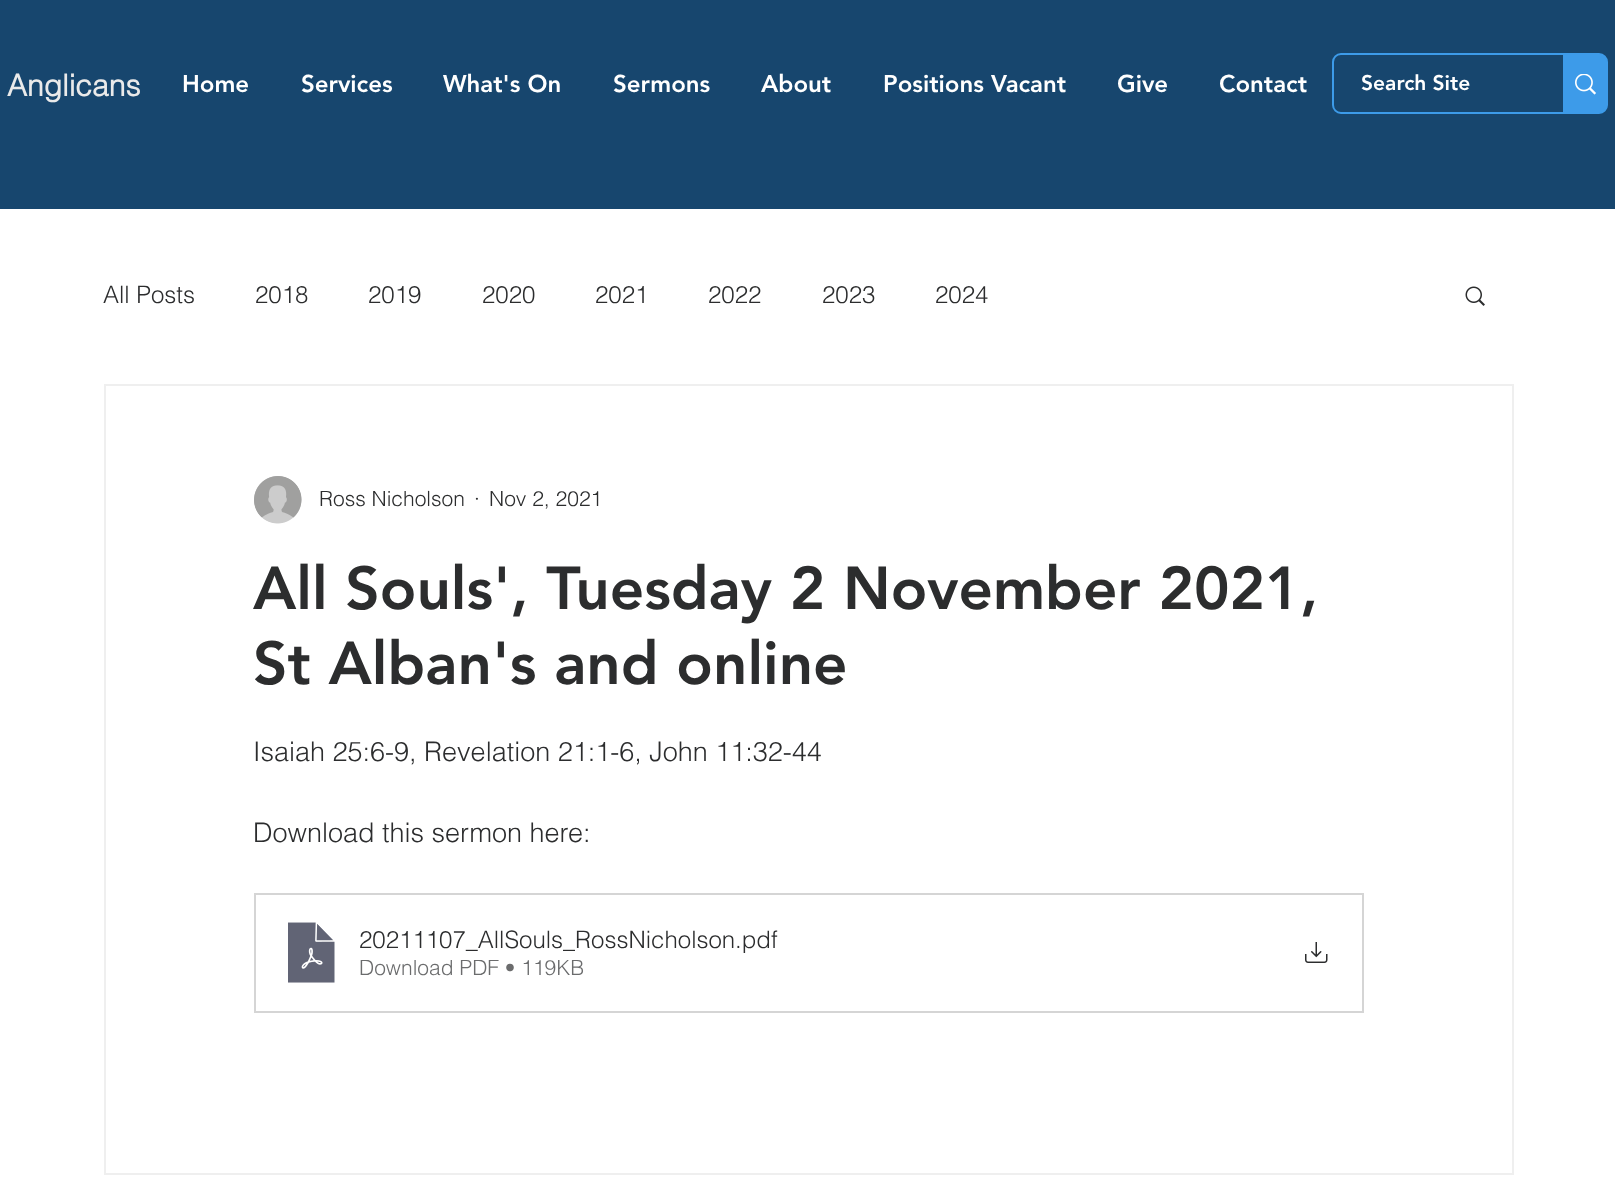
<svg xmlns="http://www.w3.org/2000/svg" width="1615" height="1198">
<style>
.a{font:bold 30px helvetica;fill:#eaeaea}
.b{font:900 24px 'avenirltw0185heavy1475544';fill:#fff}
.c{font:900 21px 'avenirltw0185heavy1475544';fill:#fff}
.d{font:300 24px helvetica;fill:#2c2d2e}
.e{font:300 21px helvetica;fill:#2c2d2e}
.f{font:900 60px 'avenirltw0185heavy1475544';fill:#2c2d2e}
.g{font:300 27px helvetica;fill:#2c2d2e}
.h{font:300 21px helvetica;fill:#6b6c6d}
</style>
<rect width="100%" height="100%" fill="#fff"/>
<path fill="#17466e" d="M0 0h1615v209H0z"/>
<rect fill="none" stroke="#3d9be9" stroke-width="2" x="1333" y="54" width="274" height="59" rx="8"/>
<path fill="#3d9be9" d="M1563 54h36c4.5 0 8 3.5 8 8v43c0 4.5-3.5 8-8 8h-36z"/>
<image href="1.png" x="1575" y="74" width="21" height="21"/>
<image href="2.png" x="1465" y="286" width="20" height="20"/>
<path fill="none" stroke="#efefef" stroke-width="2" d="M105 385h1408v789H105z"/>
<image href="3.png" x="254" y="476" width="48" height="48"/>
<path fill="none" stroke="#d5d5d5" stroke-width="2" d="M255 894h1108v118H255z"/>
<image href="4.png" x="288" y="922" width="47" height="61"/>
<image href="5.png" x="1305" y="942" width="23" height="21"/>
<text class="a" x="7" y="96">Anglicans</text>
<text class="b" x="182" y="92">Home</text>
<text class="b" x="301" y="92">Services</text>
<text class="b" x="443" y="92">What's On</text>
<text class="b" x="613" y="92">Sermons</text>
<text class="b" x="761" y="92">About</text>
<text class="b" x="883" y="92">Positions Vacant</text>
<text class="b" x="1117" y="92">Give</text>
<text class="b" x="1219" y="92">Contact</text>
<text class="c" x="1361" y="90">Search Site</text>
<text class="d" x="103" y="303">All Posts</text>
<text class="d" x="255" y="303">2018</text>
<text class="d" x="368" y="303">2019</text>
<text class="d" x="482" y="303">2020</text>
<text class="d" x="595" y="303">2021</text>
<text class="d" x="708" y="303">2022</text>
<text class="d" x="822" y="303">2023</text>
<text class="d" x="935" y="303">2024</text>
<text class="e" x="319" y="506">Ross Nicholson</text>
<text class="e" x="474" y="506">·</text>
<text class="e" x="489" y="506">Nov 2, 2021</text>
<text class="f" x="253" y="609">All Souls', Tuesday 2 November 2021,</text>
<text class="f" x="253" y="684">St Alban's and online</text>
<text class="g" x="253" y="761">Isaiah 25:6-9, Revelation 21:1-6, John 11:32-44</text>
<text class="g" x="253" y="842">Download this sermon here:</text>
<text class="d" x="359" y="948">20211107_AllSouls_RossNicholson</text>
<text class="d" x="735" y="948">.pdf</text>
<text class="h" x="359" y="975">Download PDF • 119KB</text>
</svg>
